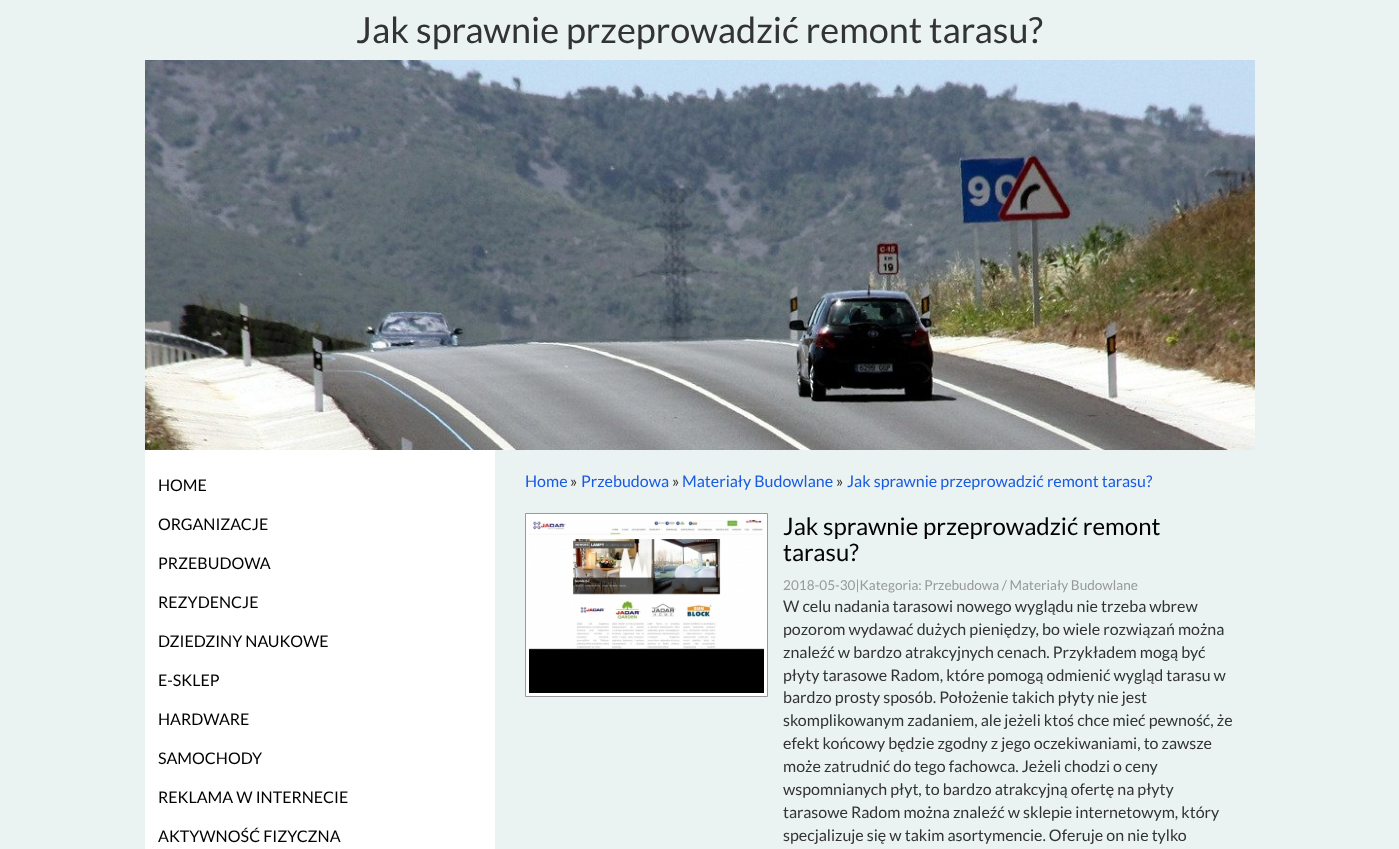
<svg xmlns="http://www.w3.org/2000/svg" width="1399" height="849">
<style>
.a{font:36px Lato;fill:#333}
.b{font:16px Lato;fill:#000}
.c{font:16px Lato;fill:#185be2}
.d{font:16px Lato;fill:#333}
.e{font:24px Lato;fill:#000}
.f{font:13.6px Lato;fill:#999}
</style>
<rect width="100%" height="100%" fill="#eaf2f2"/>
<image href="1.png" x="145" y="60" width="1110" height="390"/>
<path fill="#fff" d="M145 450h350v399H145z"/>
<path fill="#fff" stroke="#999" d="M525.5 513.5h242v183H525.5z"/>
<image href="2.png" x="529" y="519" width="235" height="174"/>
<text class="a" x="356" y="43">Jak sprawnie przeprowadzić remont tarasu?</text>
<text class="b" x="158" y="491">HOME</text>
<text class="b" x="158" y="530">ORGANIZACJE</text>
<text class="b" x="158" y="569">PRZEBUDOWA</text>
<text class="b" x="158" y="608">REZYDENCJE</text>
<text class="b" x="158" y="647">DZIEDZINY NAUKOWE</text>
<text class="b" x="158" y="686">E-SKLEP</text>
<text class="b" x="158" y="725">HARDWARE</text>
<text class="b" x="158" y="764">SAMOCHODY</text>
<text class="b" x="158" y="803">REKLAMA W INTERNECIE</text>
<text class="b" x="158" y="842">AKTYWNOŚĆ FIZYCZNA</text>
<text class="c" x="525" y="487">Home</text>
<text class="d" x="570" y="487">»</text>
<text class="c" x="581" y="487">Przebudowa</text>
<text class="d" x="672" y="487">»</text>
<text class="c" x="682" y="487">Materiały Budowlane</text>
<text class="d" x="836" y="487">»</text>
<text class="c" x="847" y="487">Jak sprawnie przeprowadzić remont tarasu?</text>
<text class="e" x="783" y="535">Jak sprawnie przeprowadzić remont</text>
<text class="e" x="783" y="561">tarasu?</text>
<text class="f" x="783" y="590">2018-05-30|Kategoria: Przebudowa / Materiały Budowlane</text>
<text class="d" x="783" y="612">W celu nadania tarasowi nowego wyglądu nie trzeba wbrew</text>
<text class="d" x="783" y="635">pozorom wydawać dużych pieniędzy, bo wiele rozwiązań można</text>
<text class="d" x="783" y="658">znaleźć w bardzo atrakcyjnych cenach. Przykładem mogą być</text>
<text class="d" x="783" y="681">płyty tarasowe Radom, które pomogą odmienić wygląd tarasu w</text>
<text class="d" x="783" y="703">bardzo prosty sposób. Położenie takich płyty nie jest</text>
<text class="d" x="783" y="726">skomplikowanym zadaniem, ale jeżeli ktoś chce mieć pewność, że</text>
<text class="d" x="783" y="749">efekt końcowy będzie zgodny z jego oczekiwaniami, to zawsze</text>
<text class="d" x="783" y="772">może zatrudnić do tego fachowca. Jeżeli chodzi o ceny</text>
<text class="d" x="783" y="795">wspomnianych płyt, to bardzo atrakcyjną ofertę na płyty</text>
<text class="d" x="783" y="818">tarasowe Radom można znaleźć w sklepie internetowym, który</text>
<text class="d" x="783" y="841">specjalizuje się w takim asortymencie. Oferuje on nie tylko</text>
</svg>
